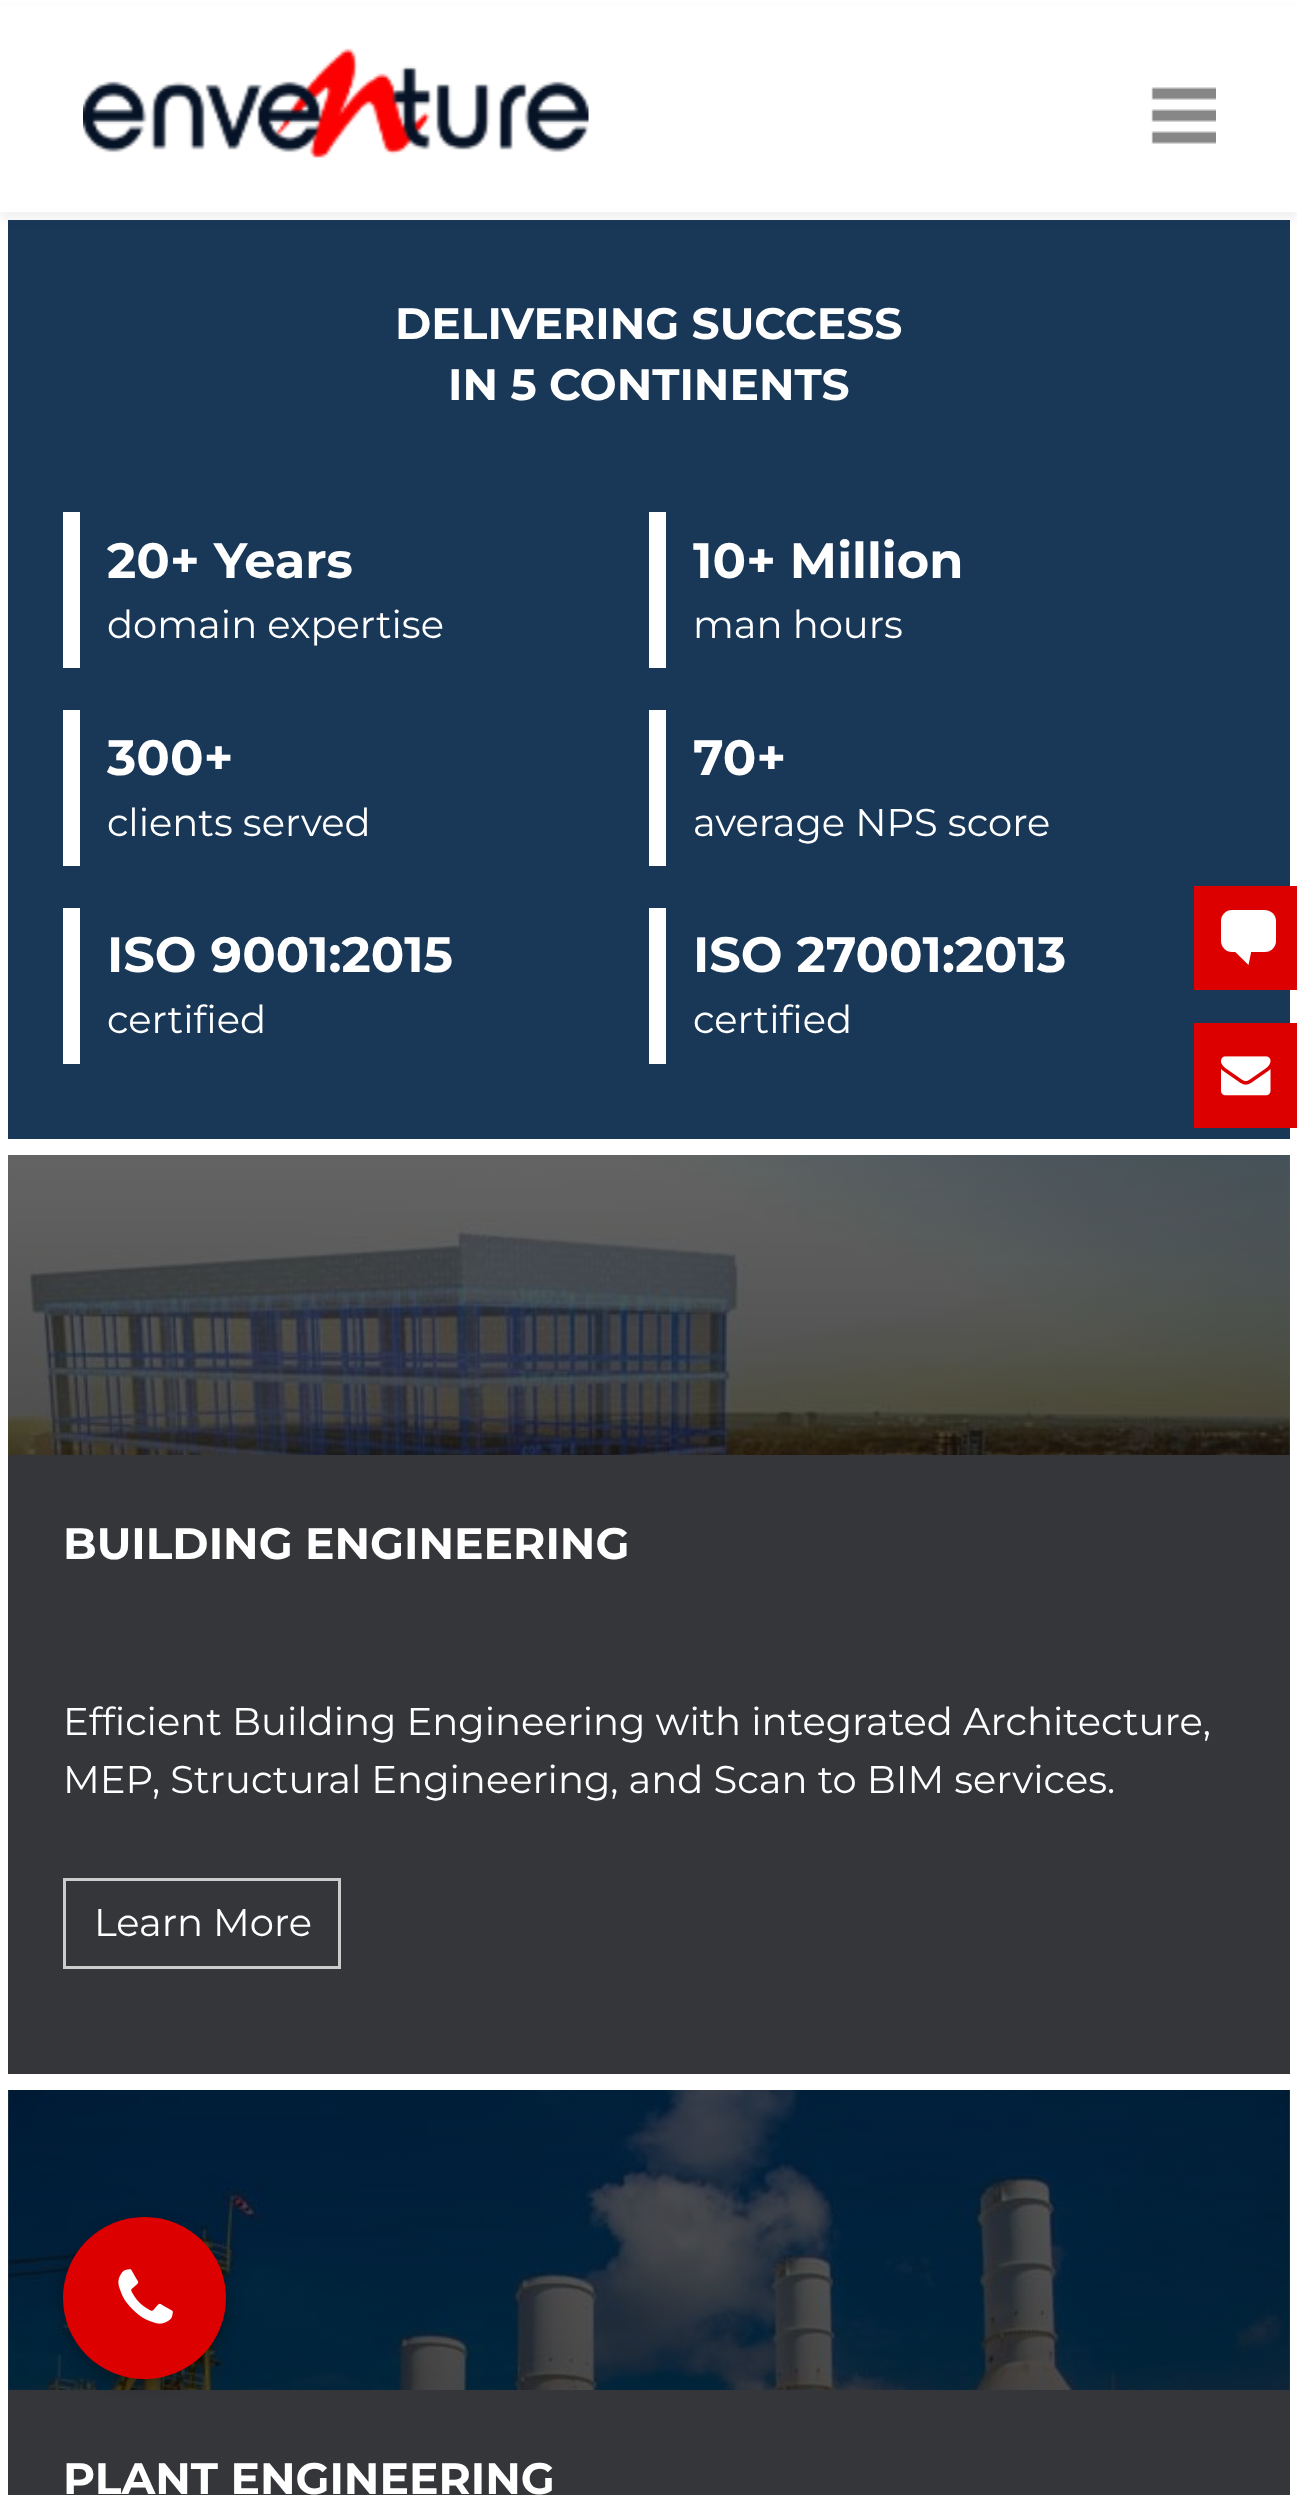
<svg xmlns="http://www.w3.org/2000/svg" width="1297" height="2495">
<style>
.a{font:bold 44px Montserrat;fill:#fff}
.b{font:bold 49.5px Montserrat;fill:#fff}
.c{font:38.5px Montserrat;fill:#fff}
</style>
<defs>
<linearGradient id="g1" gradientUnits="userSpaceOnUse" x1="649" y1="2074" x2="649" y2="1155"><stop offset="0" stop-color="#000" stop-opacity="0.9"/><stop offset="1" stop-color="#000" stop-opacity="0.6"/></linearGradient>
<linearGradient id="g2" gradientUnits="userSpaceOnUse" x1="649" y1="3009" x2="649" y2="2090"><stop offset="0" stop-color="#000" stop-opacity="0.9"/><stop offset="1" stop-color="#000" stop-opacity="0.6"/></linearGradient>
</defs>
<rect width="100%" height="100%" fill="#fff"/>
<path fill="#193858" d="M8 220h1282v919H8z"/>
<path fill="#0000000d" filter="blur(4px)" d="M0 8h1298v212H0z"/>
<path fill="#fff" d="M0 5h1297v207H0z"/>
<image href="1.png" x="83" y="48" width="506" height="110"/>
<image href="2.png" x="1151" y="87" width="65" height="57"/>
<path fill="#fff" d="M63 512h17v156H63z"/>
<path fill="#fff" d="M649 512h17v156H649z"/>
<path fill="#fff" d="M63 710h17v156H63z"/>
<path fill="#fff" d="M649 710h17v156H649z"/>
<path fill="#fff" d="M63 908h17v156H63z"/>
<path fill="#fff" d="M649 908h17v156H649z"/>
<image href="3.png" x="8" y="1155" width="1282" height="300"/>
<path fill="url(#g1)" d="M8 1155h1282v300H8z"/>
<path fill="#35363a" d="M8 1455h1282v619H8z"/>
<path fill="none" stroke="#ccc" stroke-width="3" d="M64.5 1879.5h275v88H64.5z"/>
<image href="4.png" x="8" y="2090" width="1282" height="300"/>
<path fill="url(#g2)" d="M8 2090h1282v300H8z"/>
<path fill="#35363a" d="M8 2390h1282v105H8z"/>
<path fill="#d00" d="M1194 886h103v104H1194z"/>
<rect fill="#fff" x="1221" y="910" width="55" height="42" rx="11"/>
<path fill="#fff" d="M1221 938h33l-5.5 27z"/>
<path fill="#d00" d="M1194 1023h103v105H1194z"/>
<image href="5.png" x="1221" y="1056" width="50" height="40"/>
<rect fill="#0000004d" filter="blur(7.5px)" x="63" y="2225" width="163" height="159" rx="79.5"/>
<rect fill="#d00" x="63" y="2217" width="163" height="162" rx="81"/>
<image href="6.png" x="118" y="2269" width="55" height="55"/>
<text class="a" x="395" y="339">DELIVERING SUCCESS</text>
<text class="a" x="448" y="400">IN 5 CONTINENTS</text>
<text class="b" x="107" y="578">20+ Years</text>
<text class="c" x="107" y="638">domain expertise</text>
<text class="b" x="693" y="578">10+ Million</text>
<text class="c" x="693" y="638">man hours</text>
<text class="b" x="107" y="775">300+</text>
<text class="c" x="107" y="836">clients served</text>
<text class="b" x="693" y="775">70+</text>
<text class="c" x="693" y="836">average NPS score</text>
<text class="b" x="107" y="972">ISO 9001:2015</text>
<text class="c" x="107" y="1033">certified</text>
<text class="b" x="693" y="972">ISO 27001:2013</text>
<text class="c" x="693" y="1033">certified</text>
<text class="a" x="63" y="1559">BUILDING ENGINEERING</text>
<text class="c" x="63" y="1735">Efficient Building Engineering with integrated Architecture,</text>
<text class="c" x="63" y="1793">MEP, Structural Engineering, and Scan to BIM services.</text>
<text class="c" x="94" y="1936">Learn More</text>
<text class="a" x="63" y="2494">PLANT ENGINEERING</text>
</svg>
